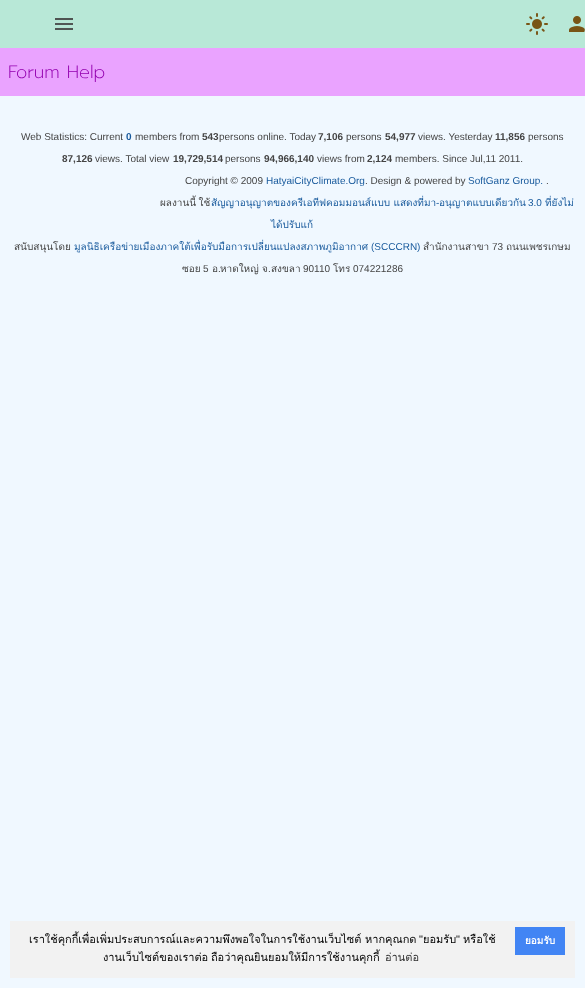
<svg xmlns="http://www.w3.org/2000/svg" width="585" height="988">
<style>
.a{font:200 18px Prompt;fill:#9300af}
.b{font:10px Liberation Sans;fill:#444}
.c{font:bold 10px Liberation Sans;fill:#17599c}
.d{font:bold 10px Liberation Sans;fill:#444}
.e{font:10px Liberation Sans;fill:#17599c}
.f{font:10px Loma;fill:#444}
.g{font:10px Loma;fill:#17599c}
.h{font:11px Loma;fill:#000}
.i{font:11px Liberation Sans;fill:#000}
.j{font:11px Loma;fill:#303030}
.k{font:bold 10px Loma;fill:#fff}
</style>
<rect width="100%" height="100%" fill="#f0f8ff"/>
<path fill="#b8e8d7" d="M0 0h585v48H0z"/>
<image href="1.png" x="55" y="18" width="18" height="12"/>
<image href="2.png" x="526" y="13" width="22" height="22"/>
<image href="3.png" x="569" y="16" width="16" height="16"/>
<path fill="#eaa3ff" d="M0 48h585v48H0z"/>
<path fill="#f2f2f2" d="M10 921h565v57H10z"/>
<path fill="#4285f4" d="M515 927h50v28H515z"/>
<text class="a" x="8" y="78">Forum Help</text>
<text class="b" x="21" y="140">Web Statistics: Current</text>
<text class="c" x="126" y="140">0</text>
<text class="b" x="135" y="140">members from</text>
<text class="d" x="202" y="140">543</text>
<text class="b" x="219" y="140">persons online. Today</text>
<text class="d" x="318" y="140">7,106</text>
<text class="b" x="346" y="140">persons</text>
<text class="d" x="385" y="140">54,977</text>
<text class="b" x="418" y="140">views. Yesterday</text>
<text class="d" x="495" y="140">11,856</text>
<text class="b" x="528" y="140">persons</text>
<text class="d" x="62" y="162">87,126</text>
<text class="b" x="95" y="162">views. Total view</text>
<text class="d" x="173" y="162">19,729,514</text>
<text class="b" x="225" y="162">persons</text>
<text class="d" x="264" y="162">94,966,140</text>
<text class="b" x="317" y="162">views from</text>
<text class="d" x="367" y="162">2,124</text>
<text class="b" x="395" y="162">members. Since Jul,11 2011.</text>
<text class="b" x="185" y="184">Copyright © 2009</text>
<text class="e" x="266" y="184">HatyaiCityClimate.Org</text>
<text class="b" x="365" y="184">. Design &amp; powered by</text>
<text class="e" x="468" y="184">SoftGanz Group.</text>
<text class="b" x="546" y="184">.</text>
<text class="f" x="160" y="206" word-spacing="-1">ผลงานนี้ ใช้</text>
<text class="g" x="211" y="206">สัญญาอนุญาตของครีเอทีฟคอมมอนส์แบบ แสดงที่มา</text>
<text class="e" x="436" y="206">-</text>
<text class="g" x="439" y="206">อนุญาตแบบเดียวกัน</text>
<text class="e" x="528" y="206">3.0</text>
<text class="g" x="545" y="206">ที่ยังไม่</text>
<text class="g" x="271" y="228">ได้ปรับแก้</text>
<text class="f" x="14" y="250">สนับสนุนโดย</text>
<text class="g" x="74" y="250">มูลนิธิเครือข่ายเมืองภาคใต้เพื่อรับมือการเปลี่ยนแปลงสภาพภูมิอากาศ</text>
<text class="e" x="371" y="250">(SCCCRN)</text>
<text class="f" x="423" y="250">สำนักงานสาขา</text>
<text class="b" x="492" y="250">73</text>
<text class="f" x="506" y="250">ถนนเพชรเกษม</text>
<text class="f" x="182" y="272">ซอย</text>
<text class="b" x="203" y="272">5</text>
<text class="f" x="212" y="272">อ</text>
<text class="b" x="218" y="272">.</text>
<text class="f" x="220" y="272">หาดใหญ่ จ</text>
<text class="b" x="268" y="272">.</text>
<text class="f" x="271" y="272">สงขลา</text>
<text class="b" x="303" y="272">90110</text>
<text class="f" x="333" y="272">โทร</text>
<text class="b" x="353" y="272">074221286</text>
<text class="h" x="29" y="943">เราใช้คุกกี้เพื่อเพิ่มประสบการณ์และความพึงพอใจในการใช้งานเว็บไซต์ หากคุณกด</text>
<text class="i" x="419" y="943">"</text>
<text class="h" x="423" y="943">ยอมรับ</text>
<text class="i" x="456" y="943">"</text>
<text class="h" x="463" y="943">หรือใช้</text>
<text class="h" x="103" y="961" word-spacing="-1">งานเว็บไซต์ของเราต่อ ถือว่าคุณยินยอมให้มีการใช้งานคุกกี้</text>
<text class="j" x="385" y="961">อ่านต่อ</text>
<text class="k" x="525" y="944">ยอมรับ</text>
</svg>
